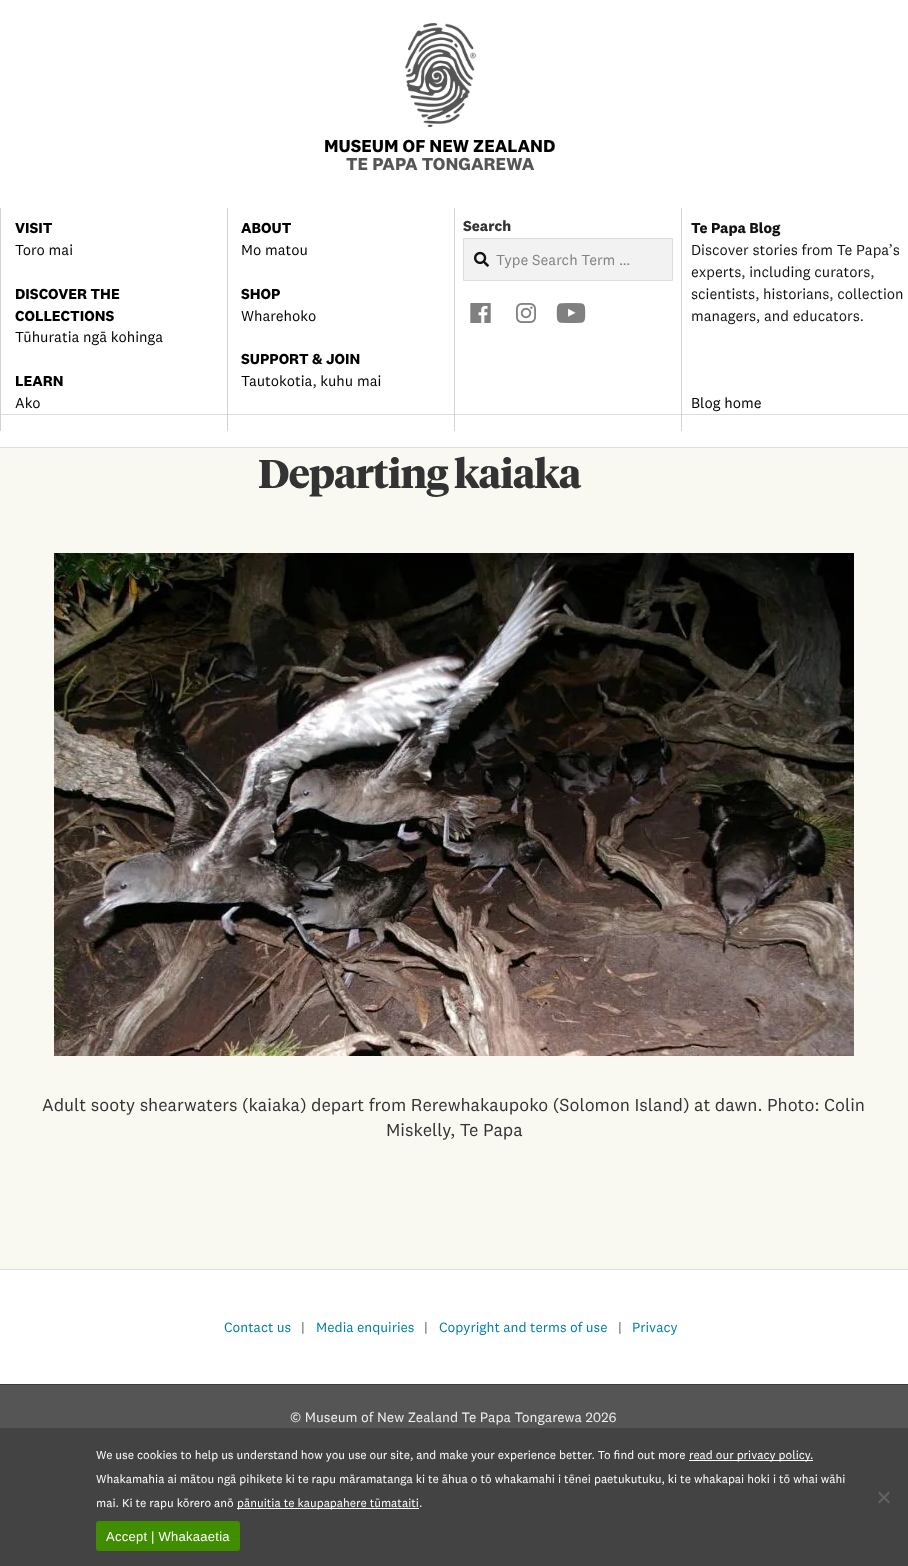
<svg xmlns="http://www.w3.org/2000/svg" width="908" height="1566">
<style>
.a{font:bold 18px 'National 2';fill:#000}
.b{font:bold 18px 'National 2';fill:#555}
.c{font:bold 15px 'National 2';fill:#000}
.d{font:15px 'National 2';fill:#000}
.e{font:bold 15px 'National 2';fill:#333}
.f{font:15px 'National 2';fill:#828282}
.g{font:bold 15px 'National 2';fill:#111}
.h{font:15px 'National 2';fill:#111}
.i{font:bold 40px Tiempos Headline;letter-spacing:-0.75px;fill:#333}
.j{font:18px 'National 2';fill:#333}
.k{font:14px 'National 2';fill:#0080a3}
.l{font:14px 'National 2';fill:#666}
.m{font:14.1px 'National 2';fill:#f1f1f1}
.n{font:12px 'National 2';fill:#fff}
.o{font:13px Liberation Sans;letter-spacing:0.25px;fill:#fff}
</style>
<rect width="100%" height="100%" fill="#fff"/>
<path fill="#dfdfd9" d="M0 447h908v1H0z"/>
<image href="1.png" x="405" y="23" width="71" height="104"/>
<path fill="#ddd" d="M681 414h227v1H681z"/>
<path fill="#d4d2d2" d="M681 414h1v17H681z"/>
<path fill="#ddd" d="M454 414h228v1H454z"/>
<path fill="#d4d2d2" d="M454 414h1v17H454z"/>
<path fill="#ddd" d="M227 414h228v1H227z"/>
<path fill="#d4d2d2" d="M227 414h1v17H227z"/>
<path fill="#ddd" d="M0 414h228v1H0z"/>
<path fill="#d4d2d2" d="M0 208h1v223H0z"/>
<path fill="#d4d2d2" d="M227 208h1v207H227z"/>
<path fill="#d4d2d2" d="M454 208h1v207H454z"/>
<path fill="#f2f2f2" stroke="#ddd" d="M463.5 238.5h209v42H463.5z"/>
<image href="2.png" x="474" y="251" width="15" height="16"/>
<image href="3.png" x="470" y="303" width="21" height="20"/>
<image href="4.png" x="516" y="303" width="20" height="20"/>
<image href="5.png" x="556" y="303" width="30" height="20"/>
<path fill="#d4d2d2" d="M681 208h1v207H681z"/>
<path fill="#f9f9f2" d="M0 448h908v821H0z"/>
<image href="6.png" x="54" y="553" width="800" height="503"/>
<path fill="#dfdfd9" d="M0 1269h908v1H0z"/>
<path fill="#555" d="M0 1385h908v43H0z"/>
<path fill="#393939" d="M0 1384h908v1H0z"/>
<path fill="#434343" d="M0 1428h908v138H0z"/>
<path fill="#fff" d="M689 1460h124v1H689z"/>
<path fill="#fff" d="M237 1508h182v1H237z"/>
<path fill="#626262" d="M888.5 1491.5l1.5 1.5l-10.5 10.5l-1.5-1.5z"/>
<path fill="#626262" d="M878 1493l1.5-1.5l10.5 10.5l-1.5 1.5z"/>
<rect fill="#408e00" x="96" y="1521" width="144" height="30" rx="3"/>
<text class="a" x="324" y="152">MUSEUM OF NEW ZEALAND</text>
<text class="b" x="346" y="170">TE PAPA TONGAREWA</text>
<text class="c" x="15" y="233">VISIT</text>
<text class="d" x="15" y="255">Toro mai</text>
<text class="c" x="15" y="299">DISCOVER THE</text>
<text class="c" x="15" y="321">COLLECTIONS</text>
<text class="d" x="15" y="342">Tūhuratia ngā kohinga</text>
<text class="c" x="15" y="386">LEARN</text>
<text class="d" x="15" y="408">Ako</text>
<text class="c" x="241" y="233">ABOUT</text>
<text class="d" x="241" y="255">Mo matou</text>
<text class="c" x="241" y="299">SHOP</text>
<text class="d" x="241" y="321">Wharehoko</text>
<text class="c" x="241" y="364">SUPPORT &amp; JOIN</text>
<text class="d" x="241" y="386">Tautokotia, kuhu mai</text>
<text class="e" x="463" y="231">Search</text>
<text class="f" x="496" y="265">Type Search Term …</text>
<text class="g" x="691" y="233">Te Papa Blog</text>
<text class="h" x="691" y="255">Discover stories from Te Papa’s</text>
<text class="h" x="691" y="277">experts, including curators,</text>
<text class="h" x="691" y="299">scientists, historians, collection</text>
<text class="h" x="691" y="321">managers, and educators.</text>
<text class="d" x="691" y="408">Blog home</text>
<text class="i" x="258" y="488">Departing kaiaka</text>
<text class="j" x="42" y="1111">Adult sooty shearwaters (kaiaka) depart from Rerewhakaupoko (Solomon Island) at dawn. Photo: Colin</text>
<text class="j" x="386" y="1136">Miskelly, Te Papa</text>
<text class="k" x="224" y="1332">Contact us</text>
<text class="l" x="301" y="1332">|</text>
<text class="k" x="316" y="1332">Media enquiries</text>
<text class="l" x="424" y="1332">|</text>
<text class="k" x="439" y="1332">Copyright and terms of use</text>
<text class="l" x="618" y="1332">|</text>
<text class="k" x="632" y="1332">Privacy</text>
<text class="m" x="290" y="1422">© Museum of New Zealand Te Papa Tongarewa 2026</text>
<text class="n" x="96" y="1459">We use cookies to help us understand how you use our site, and make your experience better. To find out more</text>
<text class="n" x="689" y="1459">read our privacy policy.</text>
<text class="n" x="96" y="1483">Whakamahia ai mātou ngā pihikete ki te rapu māramatanga ki te āhua o tō whakamahi i tēnei paetukutuku, ki te whakapai hoki i tō whai wāhi</text>
<text class="n" x="96" y="1507">mai. Ki te rapu kōrero anō</text>
<text class="n" x="237" y="1507">pānuitia te kaupapahere tūmataiti.</text>
<text class="o" x="106" y="1541">Accept | Whakaaetia</text>
</svg>
